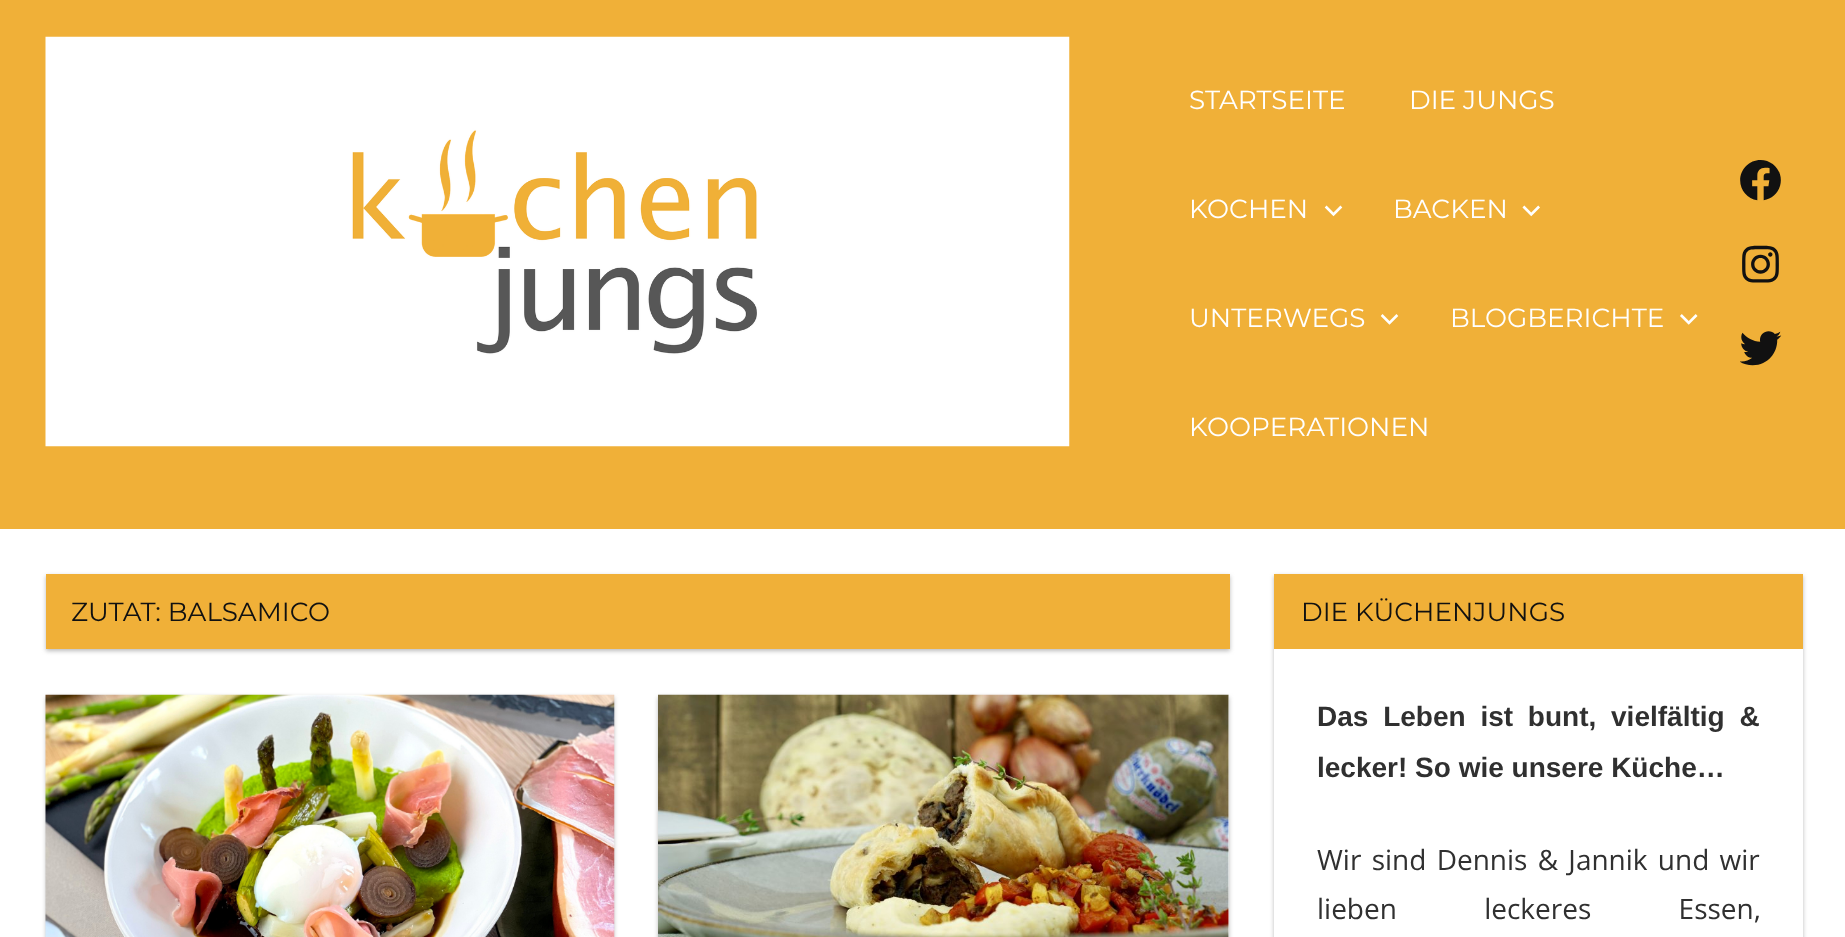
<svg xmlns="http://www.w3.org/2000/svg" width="1845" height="937">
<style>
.a{font:26.25px Montserrat;fill:#fff}
.b{font:26.25px Montserrat;fill:#111}
.c{font:bold 28px Liberation Sans;fill:#303030}
.d{font:28px Open Sans;fill:#303030}
</style>
<rect width="100%" height="100%" fill="#fff"/>
<path fill="#f0b038" d="M0 0h1845v529H0z"/>
<image href="1.png" x="45" y="36" width="1025" height="411"/>
<image href="2.png" x="1324" y="205" width="19" height="12"/>
<image href="3.png" x="1522" y="205" width="18" height="12"/>
<image href="4.png" x="1380" y="314" width="19" height="11"/>
<image href="5.png" x="1680" y="314" width="18" height="11"/>
<image href="6.png" x="1740" y="160" width="41" height="41"/>
<image href="7.png" x="1742" y="245" width="37" height="38"/>
<image href="8.png" x="1740" y="331" width="42" height="35"/>
<path fill="#bbb" filter="blur(2px)" d="M46 576h1184v75H46z"/>
<path fill="#f0b038" d="M46 574h1184v75H46z"/>
<path fill="#bbb" filter="blur(2px)" d="M46 697h568v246H46z"/>
<image href="9.png" x="45" y="694" width="570" height="243"/>
<path fill="#bbb" filter="blur(2px)" d="M658 697h571v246H658z"/>
<path fill="#fff" d="M1228 695h1v242H1228z"/>
<image href="10.png" x="658" y="694" width="571" height="243"/>
<path fill="#bbb" filter="blur(2px)" d="M1274 576h529v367H1274z"/>
<path fill="#fff" d="M1274 649h529v288H1274z"/>
<path fill="#f0b038" d="M1274 574h529v75H1274z"/>
<text class="a" x="1189" y="109">STARTSEITE</text>
<text class="a" x="1409" y="109">DIE JUNGS</text>
<text class="a" x="1189" y="218">KOCHEN</text>
<text class="a" x="1393" y="218">BACKEN</text>
<text class="a" x="1189" y="327">UNTERWEGS</text>
<text class="a" x="1450" y="327">BLOGBERICHTE</text>
<text class="a" x="1189" y="436">KOOPERATIONEN</text>
<text class="b" x="71" y="621">ZUTAT: BALSAMICO</text>
<text class="b" x="1301" y="621">DIE KÜCHENJUNGS</text>
<text class="c" x="1317" y="726" word-spacing="7">Das Leben ist bunt, vielfältig &amp;</text>
<text class="c" x="1317" y="777">lecker! So wie unsere Küche…</text>
<text class="d" x="1317" y="870" word-spacing="3">Wir sind Dennis &amp; Jannik und wir</text>
<text class="d" x="1317" y="919" word-spacing="80">lieben leckeres Essen,</text>
</svg>
